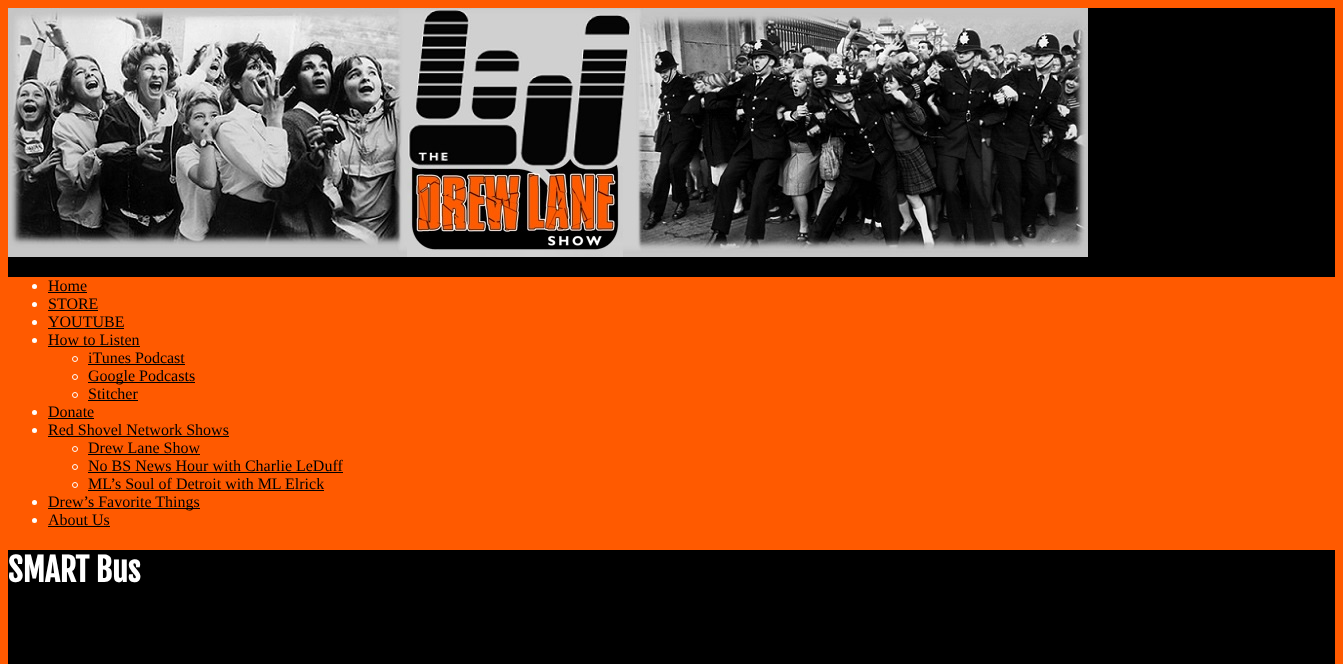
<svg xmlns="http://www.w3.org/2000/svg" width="1343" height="664">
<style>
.a{font:16px Liberation Serif;fill:#000}
.b{font:bold 32px Fjalla One;fill:#fff}
</style>
<rect width="100%" height="100%" fill="#ff5a00"/>
<path fill="#000" d="M8 8h1327v269H8z"/>
<image href="1.png" x="8" y="8" width="1080" height="249"/>
<circle fill="#fff" cx="34.5" cy="286.5" r="2.5"/>
<path fill="#000" d="M48 292h39v1H48z"/>
<circle fill="#fff" cx="34.5" cy="304.5" r="2.5"/>
<path fill="#000" d="M48 310h50v1H48z"/>
<circle fill="#fff" cx="34.5" cy="322.5" r="2.5"/>
<path fill="#000" d="M48 328h76v1H48z"/>
<circle fill="#fff" cx="34.5" cy="340.5" r="2.5"/>
<path fill="#000" d="M48 346h92v1H48z"/>
<circle fill="none" stroke="#fff" cx="75" cy="359" r="2.5"/>
<path fill="#000" d="M88 364h97v1H88z"/>
<circle fill="none" stroke="#fff" cx="75" cy="377" r="2.5"/>
<path fill="#000" d="M88 382h107v1H88z"/>
<circle fill="none" stroke="#fff" cx="75" cy="395" r="2.5"/>
<path fill="#000" d="M88 400h50v1H88z"/>
<circle fill="#fff" cx="34.5" cy="412.5" r="2.5"/>
<path fill="#000" d="M48 418h46v1H48z"/>
<circle fill="#fff" cx="34.5" cy="430.5" r="2.5"/>
<path fill="#000" d="M48 436h181v1H48z"/>
<circle fill="none" stroke="#fff" cx="75" cy="449" r="2.5"/>
<path fill="#000" d="M88 454h112v1H88z"/>
<circle fill="none" stroke="#fff" cx="75" cy="467" r="2.5"/>
<path fill="#000" d="M88 472h255v1H88z"/>
<circle fill="none" stroke="#fff" cx="75" cy="485" r="2.5"/>
<path fill="#000" d="M88 490h236v1H88z"/>
<circle fill="#fff" cx="34.5" cy="502.5" r="2.5"/>
<path fill="#000" d="M48 508h152v1H48z"/>
<circle fill="#fff" cx="34.5" cy="520.5" r="2.5"/>
<path fill="#000" d="M48 526h62v1H48z"/>
<path fill="#000" d="M8 550h1327v114H8z"/>
<text class="a" x="48" y="291">Home</text>
<text class="a" x="48" y="309">STORE</text>
<text class="a" x="48" y="327">YOUTUBE</text>
<text class="a" x="48" y="345">How to Listen</text>
<text class="a" x="88" y="363">iTunes Podcast</text>
<text class="a" x="88" y="381">Google Podcasts</text>
<text class="a" x="88" y="399">Stitcher</text>
<text class="a" x="48" y="417">Donate</text>
<text class="a" x="48" y="435">Red Shovel Network Shows</text>
<text class="a" x="88" y="453">Drew Lane Show</text>
<text class="a" x="88" y="471">No BS News Hour with Charlie LeDuff</text>
<text class="a" x="88" y="489">ML’s Soul of Detroit with ML Elrick</text>
<text class="a" x="48" y="507">Drew’s Favorite Things</text>
<text class="a" x="48" y="525">About Us</text>
<text class="b" x="8" y="582">SMART Bus</text>
</svg>
